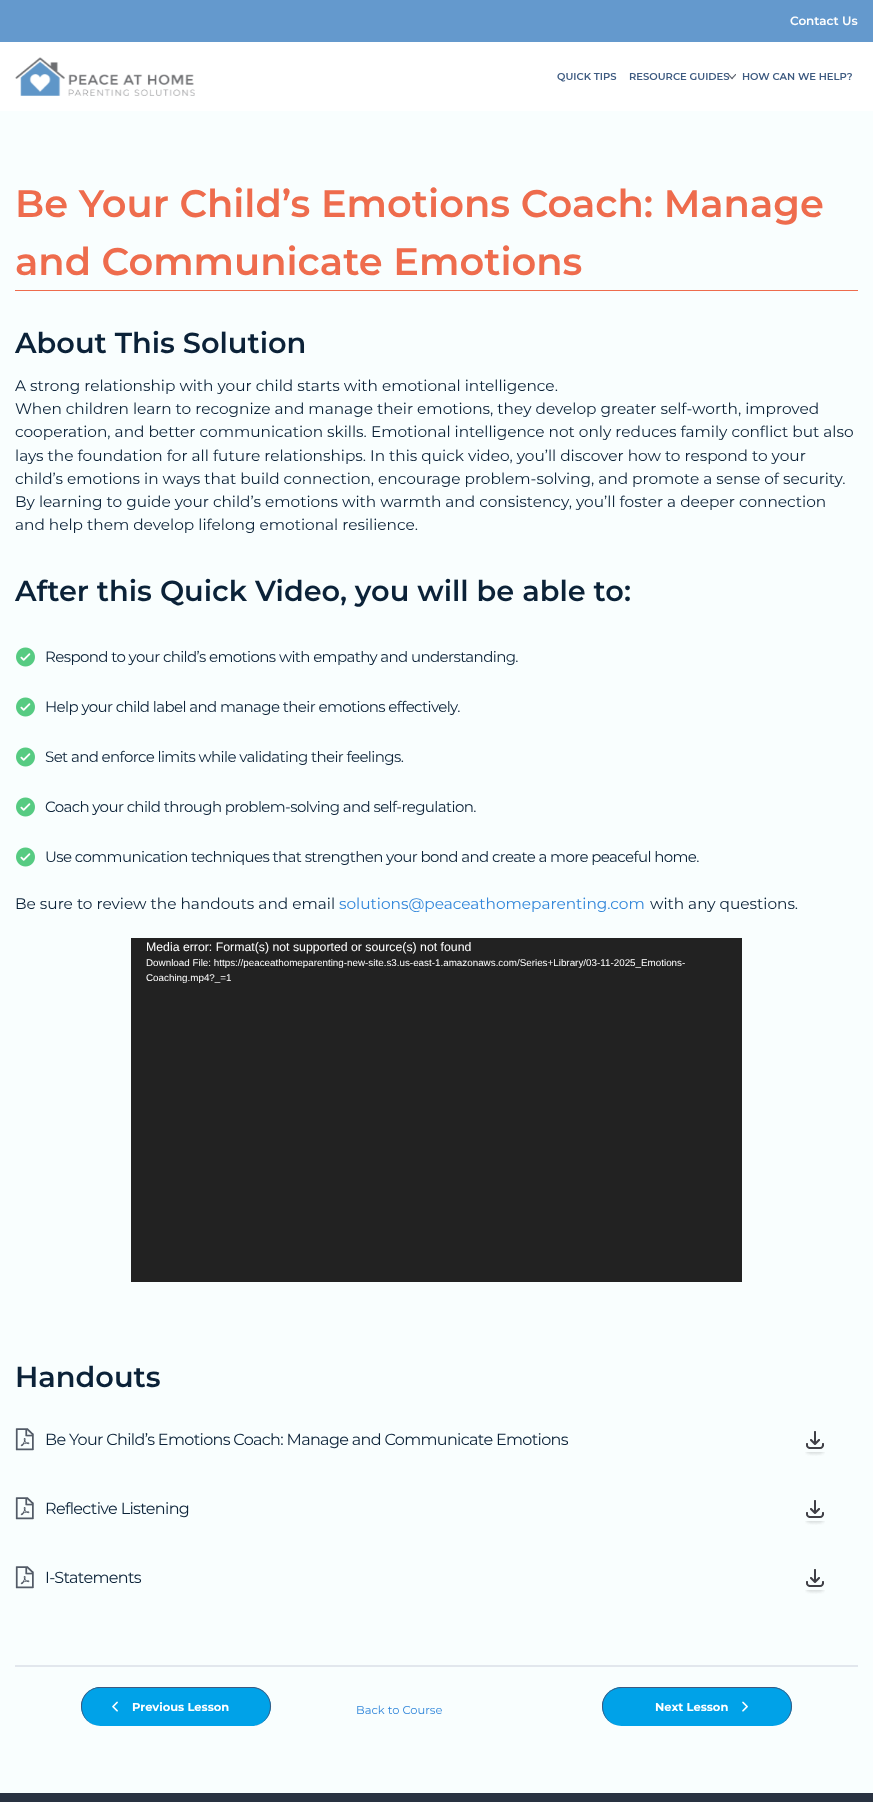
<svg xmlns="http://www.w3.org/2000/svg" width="873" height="1802">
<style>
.a{font:600 12px Montserrat;fill:#fff}
.b{font:600 10px Montserrat;fill:#3d5a80}
.c{font:600 38.4px Montserrat;fill:#ee6c4d}
.d{font:600 28.8px Montserrat;fill:#0b2238}
.e{font:15.35px Montserrat;fill:#0b2238}
.f{font:15px Montserrat;letter-spacing:-0.6px;fill:#0b2238}
.g{font:15.35px Montserrat;fill:#3186da}
.h{font:12.3px Liberation Sans;fill:#fff}
.i{font:9.83px Liberation Sans;fill:#fff}
.j{font:16px Montserrat;letter-spacing:-0.65px;fill:#0b2238}
.k{font:bold 11.5px Montserrat;fill:#fff}
.l{font:11.5px Montserrat;fill:#3186da}
</style>
<rect width="100%" height="100%" fill="#f9fefe"/>
<path fill="#fff" d="M0 42h873v69H0z"/>
<path fill="#6499cd" d="M0 0h873v42H0z"/>
<image href="1.png" x="15" y="57" width="180" height="39"/>
<path fill="#ee6c4d" d="M15 290h843v1H15z"/>
<image href="3.png" x="16" y="647" width="19" height="20"/>
<image href="3.png" x="16" y="697" width="19" height="20"/>
<image href="3.png" x="16" y="747" width="19" height="20"/>
<image href="3.png" x="16" y="797" width="19" height="20"/>
<image href="3.png" x="16" y="847" width="19" height="20"/>
<path fill="#222" d="M131 938h611v344H131z"/>
<image href="4.png" x="15" y="1428" width="19" height="23"/>
<image href="5.png" x="805" y="1431" width="20" height="25"/>
<image href="4.png" x="15" y="1497" width="19" height="23"/>
<image href="5.png" x="805" y="1500" width="20" height="25"/>
<image href="4.png" x="15" y="1566" width="19" height="23"/>
<image href="5.png" x="805" y="1569" width="20" height="25"/>
<path fill="#e2e7ed" d="M15 1665h843v2H15z"/>
<rect fill="#00a2e8" x="81" y="1687" width="190" height="39" rx="19.5"/>
<path fill="#3d5a80" fill-rule="evenodd" d="M100 1687h152c10 0 19 9 19 19c0 11-9 20-19 20h-152c-10 0-19-9-19-20c0-10 9-19 19-19zm0 1h152c10 0 18 8 18 18c0 11-8 20-18 20h-152c-10 0-18-9-18-20c0-10 8-18 18-18z"/>
<image href="6.png" x="112" y="1701" width="6" height="11"/>
<rect fill="#00a2e8" x="602" y="1687" width="190" height="39" rx="19.5"/>
<path fill="#3d5a80" fill-rule="evenodd" d="M622 1687h150c11 0 20 9 20 19c0 11-9 20-20 20h-150c-11 0-20-9-20-20c0-10 9-19 20-19zm0 1h150c11 0 19 8 19 18c0 11-8 20-19 20h-150c-11 0-19-9-19-20c0-10 8-18 19-18z"/>
<image href="7.png" x="742" y="1701" width="6" height="11"/>
<path fill="#293241" d="M0 1793h873v9H0z"/>
<text class="a" x="790" y="25">Contact Us</text>
<text class="b" x="557" y="80">QUICK TIPS</text>
<text class="b" x="629" y="80">RESOURCE GUIDES</text>
<image href="2.png" x="728" y="74" width="8" height="6"/>
<text class="b" x="742" y="80">HOW CAN WE HELP?</text>
<text class="c" x="15" y="217">Be Your Child’s Emotions Coach: Manage</text>
<text class="c" x="15" y="275">and Communicate Emotions</text>
<text class="d" x="15" y="353">About This Solution</text>
<text class="e" x="15" y="391">A strong relationship with your child starts with emotional intelligence.</text>
<text class="e" x="15" y="414">When children learn to recognize and manage their emotions, they develop greater self-worth, improved</text>
<text class="e" x="15" y="437">cooperation, and better communication skills. Emotional intelligence not only reduces family conflict but also</text>
<text class="e" x="15" y="461">lays the foundation for all future relationships. In this quick video, you’ll discover how to respond to your</text>
<text class="e" x="15" y="484">child’s emotions in ways that build connection, encourage problem-solving, and promote a sense of security.</text>
<text class="e" x="15" y="507">By learning to guide your child’s emotions with warmth and consistency, you’ll foster a deeper connection</text>
<text class="e" x="15" y="530">and help them develop lifelong emotional resilience.</text>
<text class="d" x="15" y="601">After this Quick Video, you will be able to:</text>
<text class="f" x="45" y="662">Respond to your child’s emotions with empathy and understanding.</text>
<text class="f" x="45" y="712">Help your child label and manage their emotions effectively.</text>
<text class="f" x="45" y="762">Set and enforce limits while validating their feelings.</text>
<text class="f" x="45" y="812">Coach your child through problem-solving and self-regulation.</text>
<text class="f" x="45" y="862">Use communication techniques that strengthen your bond and create a more peaceful home.</text>
<text class="e" x="15" y="909">Be sure to review the handouts and email</text>
<text class="g" x="339" y="909">solutions@peaceathomeparenting.com</text>
<text class="e" x="650" y="909">with any questions.</text>
<text class="h" x="146" y="951">Media error: Format(s) not supported or source(s) not found</text>
<text class="i" x="146" y="966">Download File: https://peaceathomeparenting-new-site.s3.us-east-1.amazonaws.com/Series+Library/03-11-2025_Emotions-</text>
<text class="i" x="146" y="981">Coaching.mp4?_=1</text>
<text class="d" x="15" y="1387">Handouts</text>
<text class="j" x="45" y="1445">Be Your Child’s Emotions Coach: Manage and Communicate Emotions</text>
<text class="j" x="45" y="1514">Reflective Listening</text>
<text class="j" x="45" y="1583">I-Statements</text>
<text class="k" x="132" y="1711">Previous Lesson</text>
<text class="l" x="356" y="1714">Back to Course</text>
<text class="k" x="655" y="1711">Next Lesson</text>
</svg>
